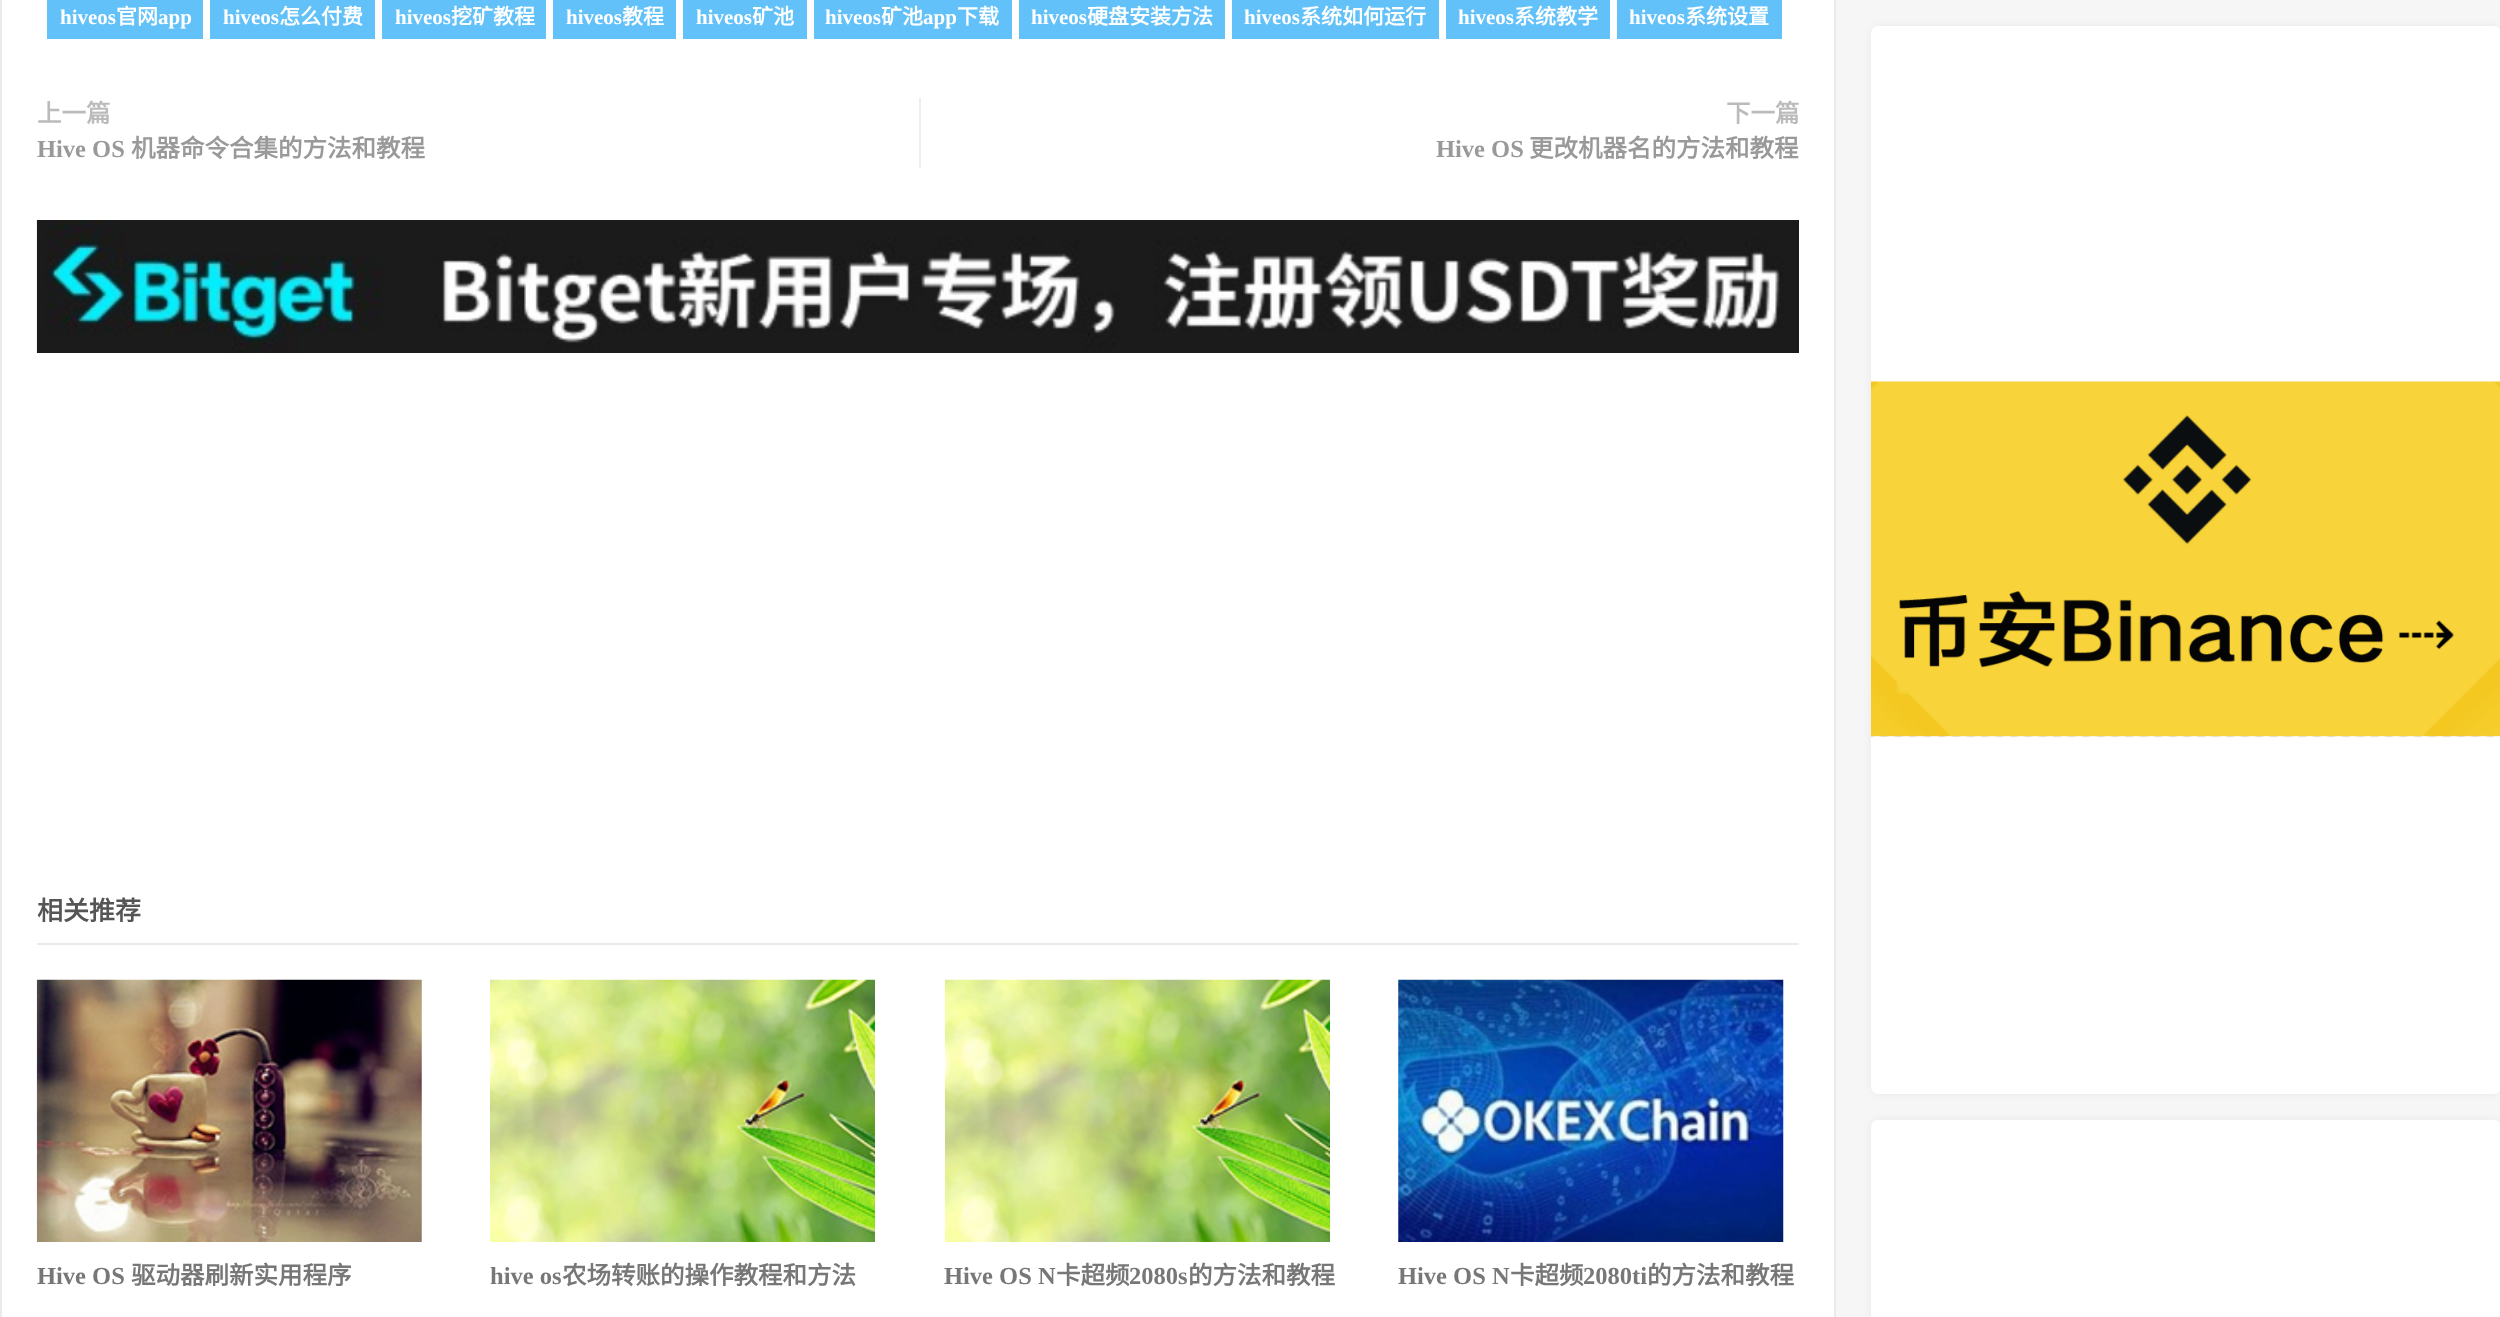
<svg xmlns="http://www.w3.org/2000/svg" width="2500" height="1317">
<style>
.a{font:bold 21px Liberation Serif;fill:#fff}
.b{font:bold 21px Noto Sans CJK SC;fill:#fff}
.c{font:bold 24.5px Noto Sans CJK SC;fill:#bbb}
.d{font:bold 24.5px Liberation Serif;fill:#999}
.e{font:bold 24.5px Noto Sans CJK SC;fill:#999}
.f{font:bold 26px Noto Sans CJK SC;fill:#555}
.g{font:bold 24.5px Liberation Serif;fill:#777}
.h{font:bold 24.5px Noto Sans CJK SC;fill:#777}
</style>
<rect width="100%" height="100%" fill="#f6f6f6"/>
<path fill="#fff" stroke="#eaeaea" stroke-width="2" d="M1 -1h1834v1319H1z"/>
<path fill="#61c1f8" d="M47 0h156v39H47z"/>
<path fill="#61c1f8" d="M210 0h165v39H210z"/>
<path fill="#61c1f8" d="M382 0h164v39H382z"/>
<path fill="#61c1f8" d="M553 0h123v39H553z"/>
<path fill="#61c1f8" d="M683 0h124v39H683z"/>
<path fill="#61c1f8" d="M814 0h198v39H814z"/>
<path fill="#61c1f8" d="M1019 0h206v39H1019z"/>
<path fill="#61c1f8" d="M1232 0h207v39H1232z"/>
<path fill="#61c1f8" d="M1446 0h164v39H1446z"/>
<path fill="#61c1f8" d="M1617 0h165v39H1617z"/>
<path fill="#eee" d="M919 98h2v70H919z"/>
<image href="1.png" x="36" y="220" width="1763" height="133"/>
<path fill="#eaeaea" d="M37 943h1762v2H37z"/>
<image href="2.png" x="36" y="979" width="386" height="263"/>
<image href="3.png" x="490" y="979" width="385" height="263"/>
<image href="4.png" x="945" y="979" width="385" height="263"/>
<image href="5.png" x="1398" y="979" width="386" height="263"/>
<rect fill="#0000000d" filter="blur(4.5px)" x="1871" y="26" width="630" height="1068" rx="7"/>
<rect fill="#fff" x="1871" y="26" width="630" height="1068" rx="7"/>
<image href="6.png" x="1871" y="381" width="629" height="357"/>
<rect fill="#0000000d" filter="blur(4.5px)" x="1871" y="1120" width="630" height="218" rx="7"/>
<rect fill="#fff" x="1871" y="1120" width="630" height="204" rx="7"/>
<text class="a" x="60" y="24">hiveos</text>
<text class="b" x="116" y="24">官网</text>
<text class="a" x="158" y="24">app</text>
<text class="a" x="223" y="24">hiveos</text>
<text class="b" x="279" y="24">怎么付费</text>
<text class="a" x="395" y="24">hiveos</text>
<text class="b" x="451" y="24">挖矿教程</text>
<text class="a" x="566" y="24">hiveos</text>
<text class="b" x="622" y="24">教程</text>
<text class="a" x="696" y="24">hiveos</text>
<text class="b" x="752" y="24">矿池</text>
<text class="a" x="825" y="24">hiveos</text>
<text class="b" x="881" y="24">矿池</text>
<text class="a" x="923" y="24">app</text>
<text class="b" x="957" y="24">下载</text>
<text class="a" x="1031" y="24">hiveos</text>
<text class="b" x="1087" y="24">硬盘安装方法</text>
<text class="a" x="1244" y="24">hiveos</text>
<text class="b" x="1300" y="24">系统如何运行</text>
<text class="a" x="1458" y="24">hiveos</text>
<text class="b" x="1514" y="24">系统教学</text>
<text class="a" x="1629" y="24">hiveos</text>
<text class="b" x="1685" y="24">系统设置</text>
<text class="c" x="37" y="122">上一篇</text>
<text class="d" x="37" y="157">Hive OS</text>
<text class="e" x="131" y="157">机器命令合集的方法和教程</text>
<text class="c" x="1726" y="122">下一篇</text>
<text class="d" x="1436" y="157">Hive OS</text>
<text class="e" x="1529" y="157">更改机器名的方法和教程</text>
<text class="f" x="37" y="920">相关推荐</text>
<text class="g" x="37" y="1284">Hive OS</text>
<text class="h" x="131" y="1284">驱动器刷新实用程序</text>
<text class="g" x="490" y="1284">hive os</text>
<text class="h" x="562" y="1284">农场转账的操作教程和方法</text>
<text class="g" x="944" y="1284">Hive OS N</text>
<text class="h" x="1056" y="1284">卡超频</text>
<text class="g" x="1129" y="1284">2080s</text>
<text class="h" x="1188" y="1284">的方法和教程</text>
<text class="g" x="1398" y="1284">Hive OS N</text>
<text class="h" x="1510" y="1284">卡超频</text>
<text class="g" x="1583" y="1284">2080ti</text>
<text class="h" x="1647" y="1284">的方法和教程</text>
</svg>
